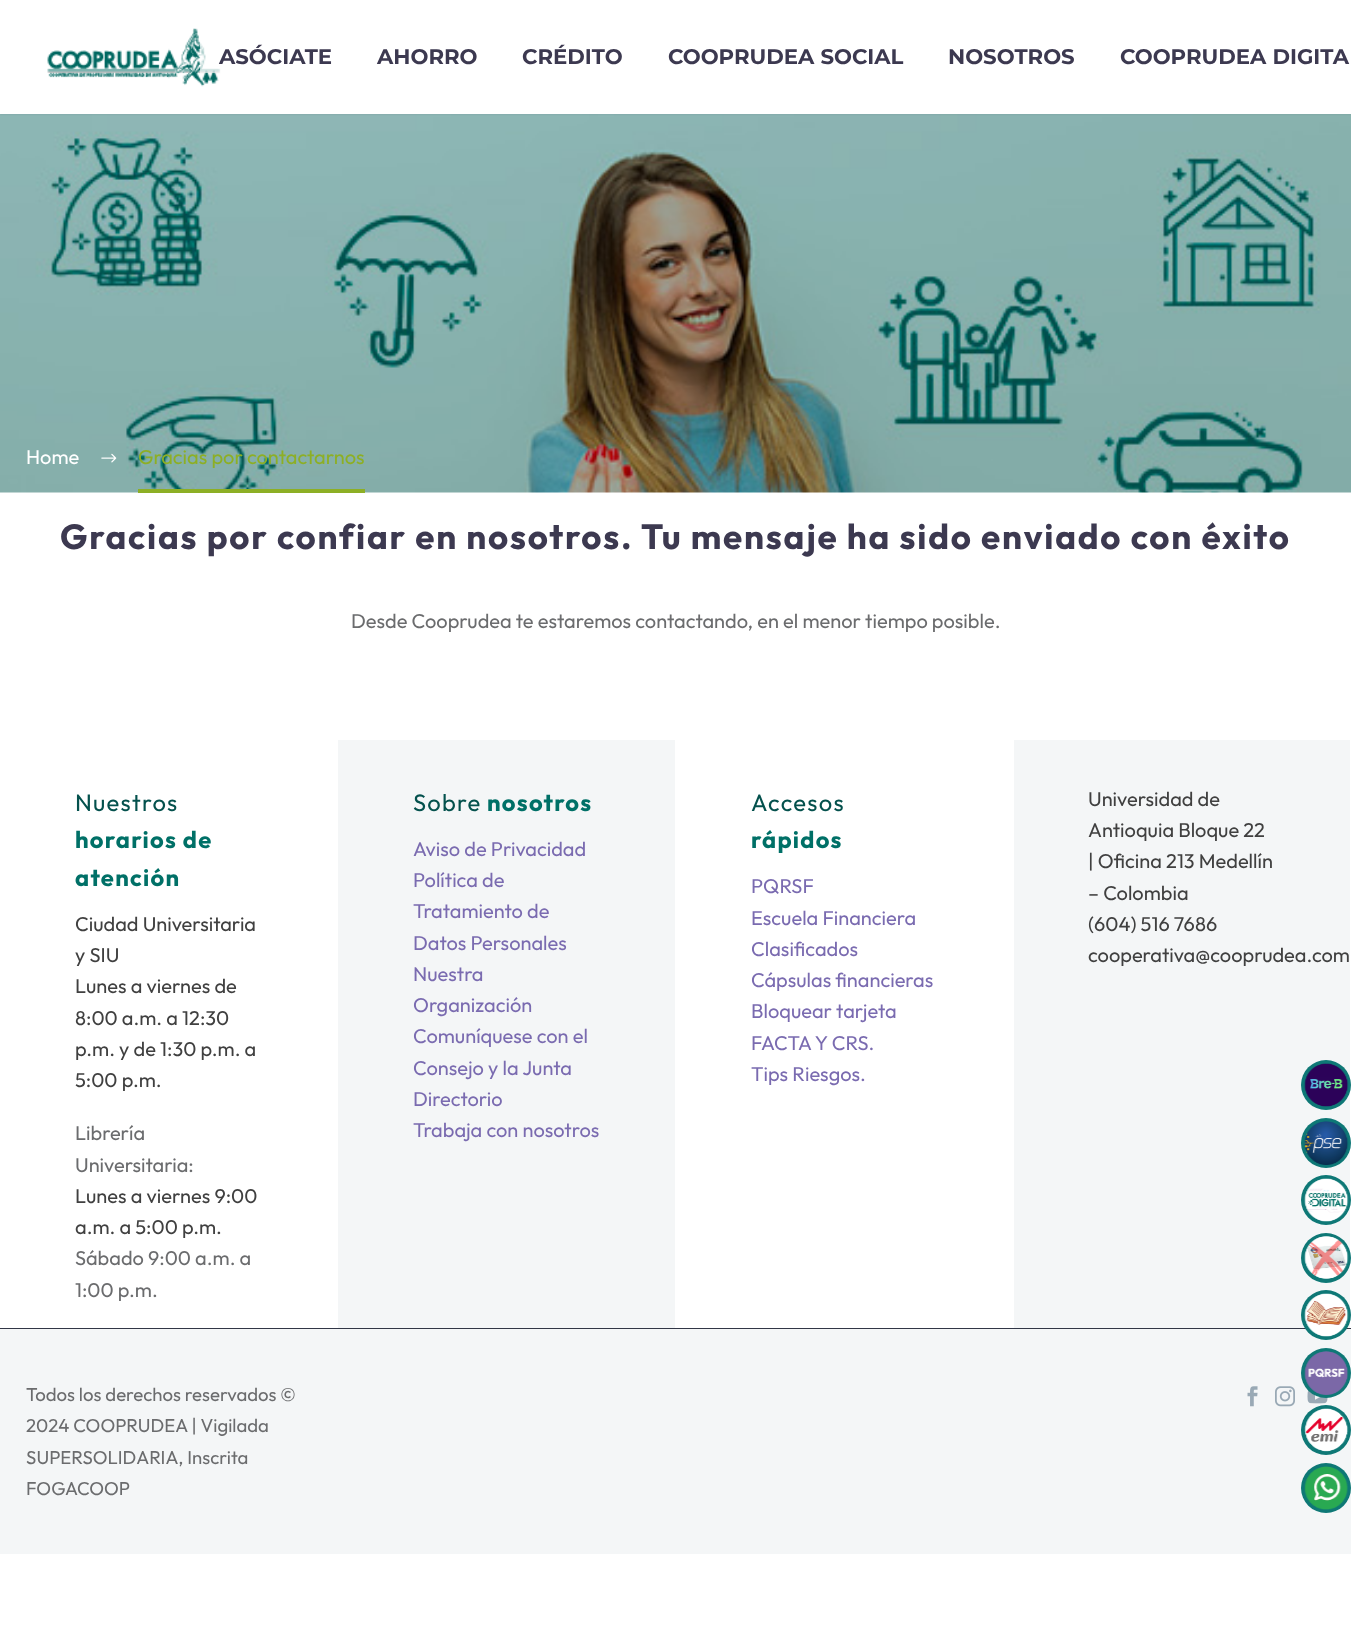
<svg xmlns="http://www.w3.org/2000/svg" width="1351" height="1634">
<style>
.a{font:bold 21.25px Montserrat;fill:#3c3950}
.b{font:20px Outfit;fill:#fff}
.c{font:20px Outfit;fill:#8daf25}
.d{font:bold 35px Outfit;letter-spacing:1.75px;fill:#3c3950}
.e{font:20px Outfit;fill:#6b6c6e}
.f{font:23.75px Outfit;letter-spacing:1.25px;fill:#04514d}
.g{font:bold 23.75px Outfit;letter-spacing:1.25px;fill:#007067}
.h{font:20px Outfit;fill:#404040}
.i{font:20px Outfit;fill:#7a6bb0}
.j{font:18.6px Outfit;fill:#6b6c6e}
</style>
<rect width="100%" height="100%" fill="#fff"/>
<image href="2.png" x="0" y="114" width="1351" height="379"/>
<path fill="#38455433" filter="blur(1px)" d="M0 0h1351v114H0z"/>
<path fill="#fff" d="M0 0h1351v114H0z"/>
<image href="1.png" x="47" y="28" width="174" height="59"/>
<path fill="#ffffffa8" d="M200 41h21v32H200z"/>
<image href="3.png" x="101" y="453" width="16" height="10"/>
<path fill="#8daf25" d="M138 489h227v4H138z"/>
<path fill="#f4f6f7" d="M338 740h337v588H338z"/>
<path fill="#f4f6f7" d="M1014 740h336v588H1014z"/>
<path fill="#f4f6f7" d="M0 1329h1351v225H0z"/>
<path fill="#313646" d="M0 1328h1351v1H0z"/>
<image href="4.png" x="1247" y="1386" width="11" height="21"/>
<image href="5.png" x="1275" y="1386" width="20" height="21"/>
<image href="6.png" x="1307" y="1390" width="21" height="14"/>
<circle fill="#0e7876" cx="1326" cy="1085" r="25"/>
<image href="7.png" x="1304" y="1063" width="45" height="44"/>
<circle fill="#0e7876" cx="1326" cy="1143" r="25"/>
<image href="8.png" x="1304" y="1121" width="45" height="44"/>
<circle fill="#0e7876" cx="1326" cy="1200" r="25"/>
<image href="9.png" x="1304" y="1178" width="45" height="44"/>
<circle fill="#0e7876" cx="1326" cy="1258" r="25"/>
<image href="10.png" x="1304" y="1236" width="45" height="43"/>
<circle fill="#0e7876" cx="1326" cy="1315" r="25"/>
<image href="11.png" x="1304" y="1293" width="45" height="44"/>
<circle fill="#0e7876" cx="1326" cy="1373" r="25"/>
<image href="12.png" x="1304" y="1351" width="45" height="44"/>
<circle fill="#0e7876" cx="1326" cy="1430" r="25"/>
<image href="13.png" x="1304" y="1408" width="45" height="44"/>
<circle fill="#0e7876" cx="1326" cy="1488" r="25"/>
<image href="14.png" x="1304" y="1466" width="44" height="44"/>
<text class="a" x="219" y="64">ASÓCIATE</text>
<text class="a" x="377" y="64">AHORRO</text>
<text class="a" x="522" y="64">CRÉDITO</text>
<text class="a" x="668" y="64">COOPRUDEA SOCIAL</text>
<text class="a" x="948" y="64">NOSOTROS</text>
<text class="a" x="1120" y="64">COOPRUDEA DIGITA</text>
<text class="b" x="26" y="464">Home</text>
<text class="c" x="138" y="464">Gracias por contactarnos</text>
<text class="d" x="60" y="549">Gracias por confiar en nosotros. Tu mensaje ha sido enviado con éxito</text>
<text class="e" x="351" y="628">Desde Cooprudea te estaremos contactando, en el menor tiempo posible.</text>
<text class="f" x="75" y="811">Nuestros</text>
<text class="g" x="75" y="848">horarios de</text>
<text class="g" x="75" y="886">atención</text>
<text class="h" x="75" y="931">Ciudad Universitaria</text>
<text class="h" x="75" y="962">y SIU</text>
<text class="h" x="75" y="993">Lunes a viernes de</text>
<text class="h" x="75" y="1025">8:00 a.m. a 12:30</text>
<text class="h" x="75" y="1056">p.m. y de 1:30 p.m. a</text>
<text class="h" x="75" y="1087">5:00 p.m.</text>
<text class="e" x="75" y="1140">Librería</text>
<text class="e" x="75" y="1172">Universitaria:</text>
<text class="h" x="75" y="1203">Lunes a viernes 9:00</text>
<text class="h" x="75" y="1234">a.m. a 5:00 p.m.</text>
<text class="e" x="75" y="1265">Sábado 9:00 a.m. a</text>
<text class="e" x="75" y="1297">1:00 p.m.</text>
<text class="f" x="413" y="811">Sobre</text>
<text class="g" x="487" y="811">nosotros</text>
<text class="i" x="413" y="856">Aviso de Privacidad</text>
<text class="i" x="413" y="887">Política de</text>
<text class="i" x="413" y="918">Tratamiento de</text>
<text class="i" x="413" y="950">Datos Personales</text>
<text class="i" x="413" y="981">Nuestra</text>
<text class="i" x="413" y="1012">Organización</text>
<text class="i" x="413" y="1043">Comuníquese con el</text>
<text class="i" x="413" y="1075">Consejo y la Junta</text>
<text class="i" x="413" y="1106">Directorio</text>
<text class="i" x="413" y="1137">Trabaja con nosotros</text>
<text class="f" x="751" y="811">Accesos</text>
<text class="g" x="751" y="848">rápidos</text>
<text class="i" x="751" y="893">PQRSF</text>
<text class="i" x="751" y="925">Escuela Financiera</text>
<text class="i" x="751" y="956">Clasificados</text>
<text class="i" x="751" y="987">Cápsulas financieras</text>
<text class="i" x="751" y="1018">Bloquear tarjeta</text>
<text class="i" x="751" y="1050">FACTA Y CRS.</text>
<text class="i" x="751" y="1081">Tips Riesgos.</text>
<text class="h" x="1088" y="806">Universidad de</text>
<text class="h" x="1088" y="837">Antioquia Bloque 22</text>
<text class="h" x="1088" y="868">| Oficina 213 Medellín</text>
<text class="h" x="1088" y="900">– Colombia</text>
<text class="h" x="1088" y="931">(604) 516 7686</text>
<text class="h" x="1088" y="962">cooperativa@cooprudea.com</text>
<text class="j" x="26" y="1401">Todos los derechos reservados ©</text>
<text class="j" x="26" y="1432">2024 COOPRUDEA | Vigilada</text>
<text class="j" x="26" y="1464">SUPERSOLIDARIA, Inscrita</text>
<text class="j" x="26" y="1495">FOGACOOP</text>
</svg>
